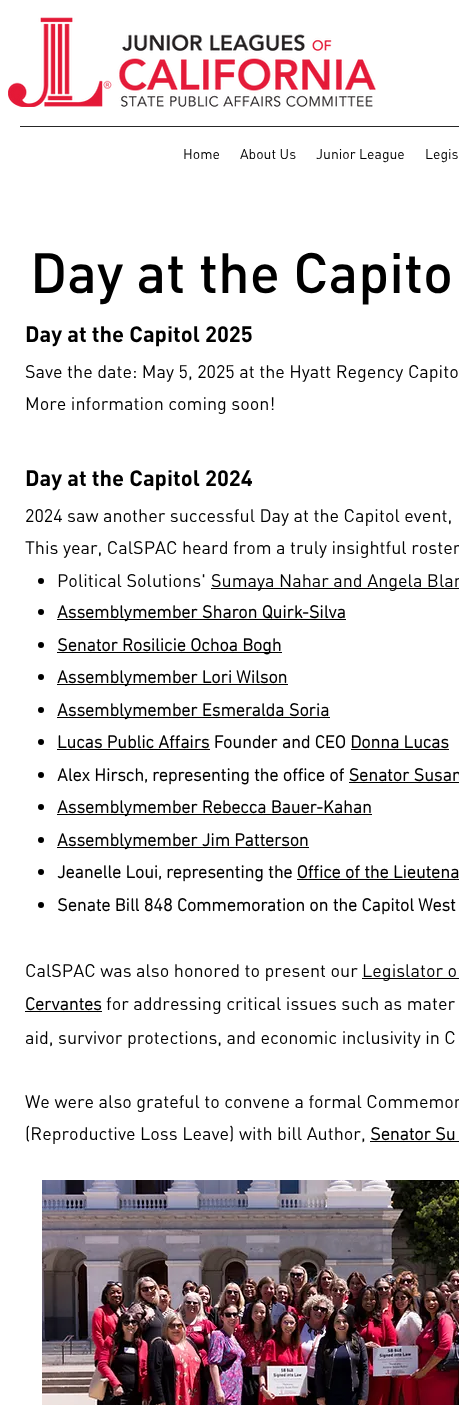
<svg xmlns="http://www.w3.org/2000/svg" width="459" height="1405">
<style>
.a{font:14px DIN;fill:#000}
.b{font:500 56px DIN;fill:#000}
.c{font:bold 22px DIN;fill:#000}
.d{font:18px DIN;fill:#000}
.e{font:bold 18px 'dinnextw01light';fill:#000}
</style>
<rect width="100%" height="100%" fill="#fff"/>
<image href="1.png" x="8" y="17" width="368" height="90"/>
<path fill="#262626" d="M20 126h439v1H20z"/>
<circle fill="#000" cx="41" cy="581" r="3"/>
<path fill="#000" d="M211 588h248v1H211z"/>
<circle fill="#000" cx="41" cy="612" r="3"/>
<path fill="#000" d="M57 619h289v1H57z"/>
<circle fill="#000" cx="41" cy="645" r="3"/>
<path fill="#000" d="M57 652h225v1H57z"/>
<circle fill="#000" cx="41" cy="677" r="3"/>
<path fill="#000" d="M57 684h231v1H57z"/>
<circle fill="#000" cx="41" cy="710" r="3"/>
<path fill="#000" d="M57 717h273v1H57z"/>
<circle fill="#000" cx="41" cy="742" r="3"/>
<path fill="#000" d="M57 749h153v1H57z"/>
<path fill="#000" d="M351 749h98v1H351z"/>
<circle fill="#000" cx="41" cy="775" r="3"/>
<path fill="#000" d="M349 782h110v1H349z"/>
<circle fill="#000" cx="41" cy="807" r="3"/>
<path fill="#000" d="M57 814h315v1H57z"/>
<circle fill="#000" cx="41" cy="840" r="3"/>
<path fill="#000" d="M57 847h252v1H57z"/>
<circle fill="#000" cx="41" cy="872" r="3"/>
<path fill="#000" d="M297 879h162v1H297z"/>
<circle fill="#000" cx="41" cy="905" r="3"/>
<path fill="#000" d="M362 978h97v1H362z"/>
<path fill="#000" d="M25 1011h77v1H25z"/>
<path fill="#000" d="M370 1141h89v1H370z"/>
<image href="2.png" x="42" y="1180" width="417" height="225"/>
<text class="a" x="183" y="159">Home</text>
<text class="a" x="240" y="159">About Us</text>
<text class="a" x="316" y="159">Junior League</text>
<text class="a" x="425" y="159">Legis</text>
<text class="b" x="30" y="293">Day at the Capito</text>
<text class="c" x="25" y="342">Day at the Capitol 2025</text>
<text class="d" x="25" y="378">Save the date: May 5, 2025 at the Hyatt Regency Capito</text>
<text class="d" x="25" y="410">More information coming soon!</text>
<text class="c" x="25" y="486">Day at the Capitol 2024</text>
<text class="d" x="25" y="522">2024 saw another successful Day at the Capitol event,</text>
<text class="d" x="25" y="554">This year, CalSPAC heard from a truly insightful roster</text>
<text class="d" x="57" y="587">Political Solutions'</text>
<text class="d" x="211" y="587">Sumaya Nahar and Angela Blan</text>
<text class="e" x="57" y="618">Assemblymember Sharon Quirk-Silva</text>
<text class="e" x="57" y="651">Senator Rosilicie Ochoa Bogh</text>
<text class="e" x="57" y="683">Assemblymember Lori Wilson</text>
<text class="e" x="57" y="716">Assemblymember Esmeralda Soria</text>
<text class="e" x="57" y="748">Lucas Public Affairs Founder and CEO Donna Lucas</text>
<text class="e" x="57" y="781">Alex Hirsch, representing the office of Senator Susan</text>
<text class="e" x="57" y="813">Assemblymember Rebecca Bauer-Kahan</text>
<text class="e" x="57" y="846">Assemblymember Jim Patterson</text>
<text class="e" x="57" y="878">Jeanelle Loui, representing the Office of the Lieutena</text>
<text class="e" x="57" y="911">Senate Bill 848 Commemoration on the Capitol West</text>
<text class="d" x="25" y="977">CalSPAC was also honored to present our</text>
<text class="d" x="362" y="977">Legislator o</text>
<text class="e" x="25" y="1010">Cervantes</text>
<text class="d" x="106" y="1010">for addressing critical issues such as mater</text>
<text class="d" x="25" y="1044">aid, survivor protections, and economic inclusivity in C</text>
<text class="d" x="25" y="1108">We were also grateful to convene a formal Commemor</text>
<text class="d" x="25" y="1140">(Reproductive Loss Leave) with bill Author,</text>
<text class="e" x="370" y="1140">Senator Su</text>
</svg>
